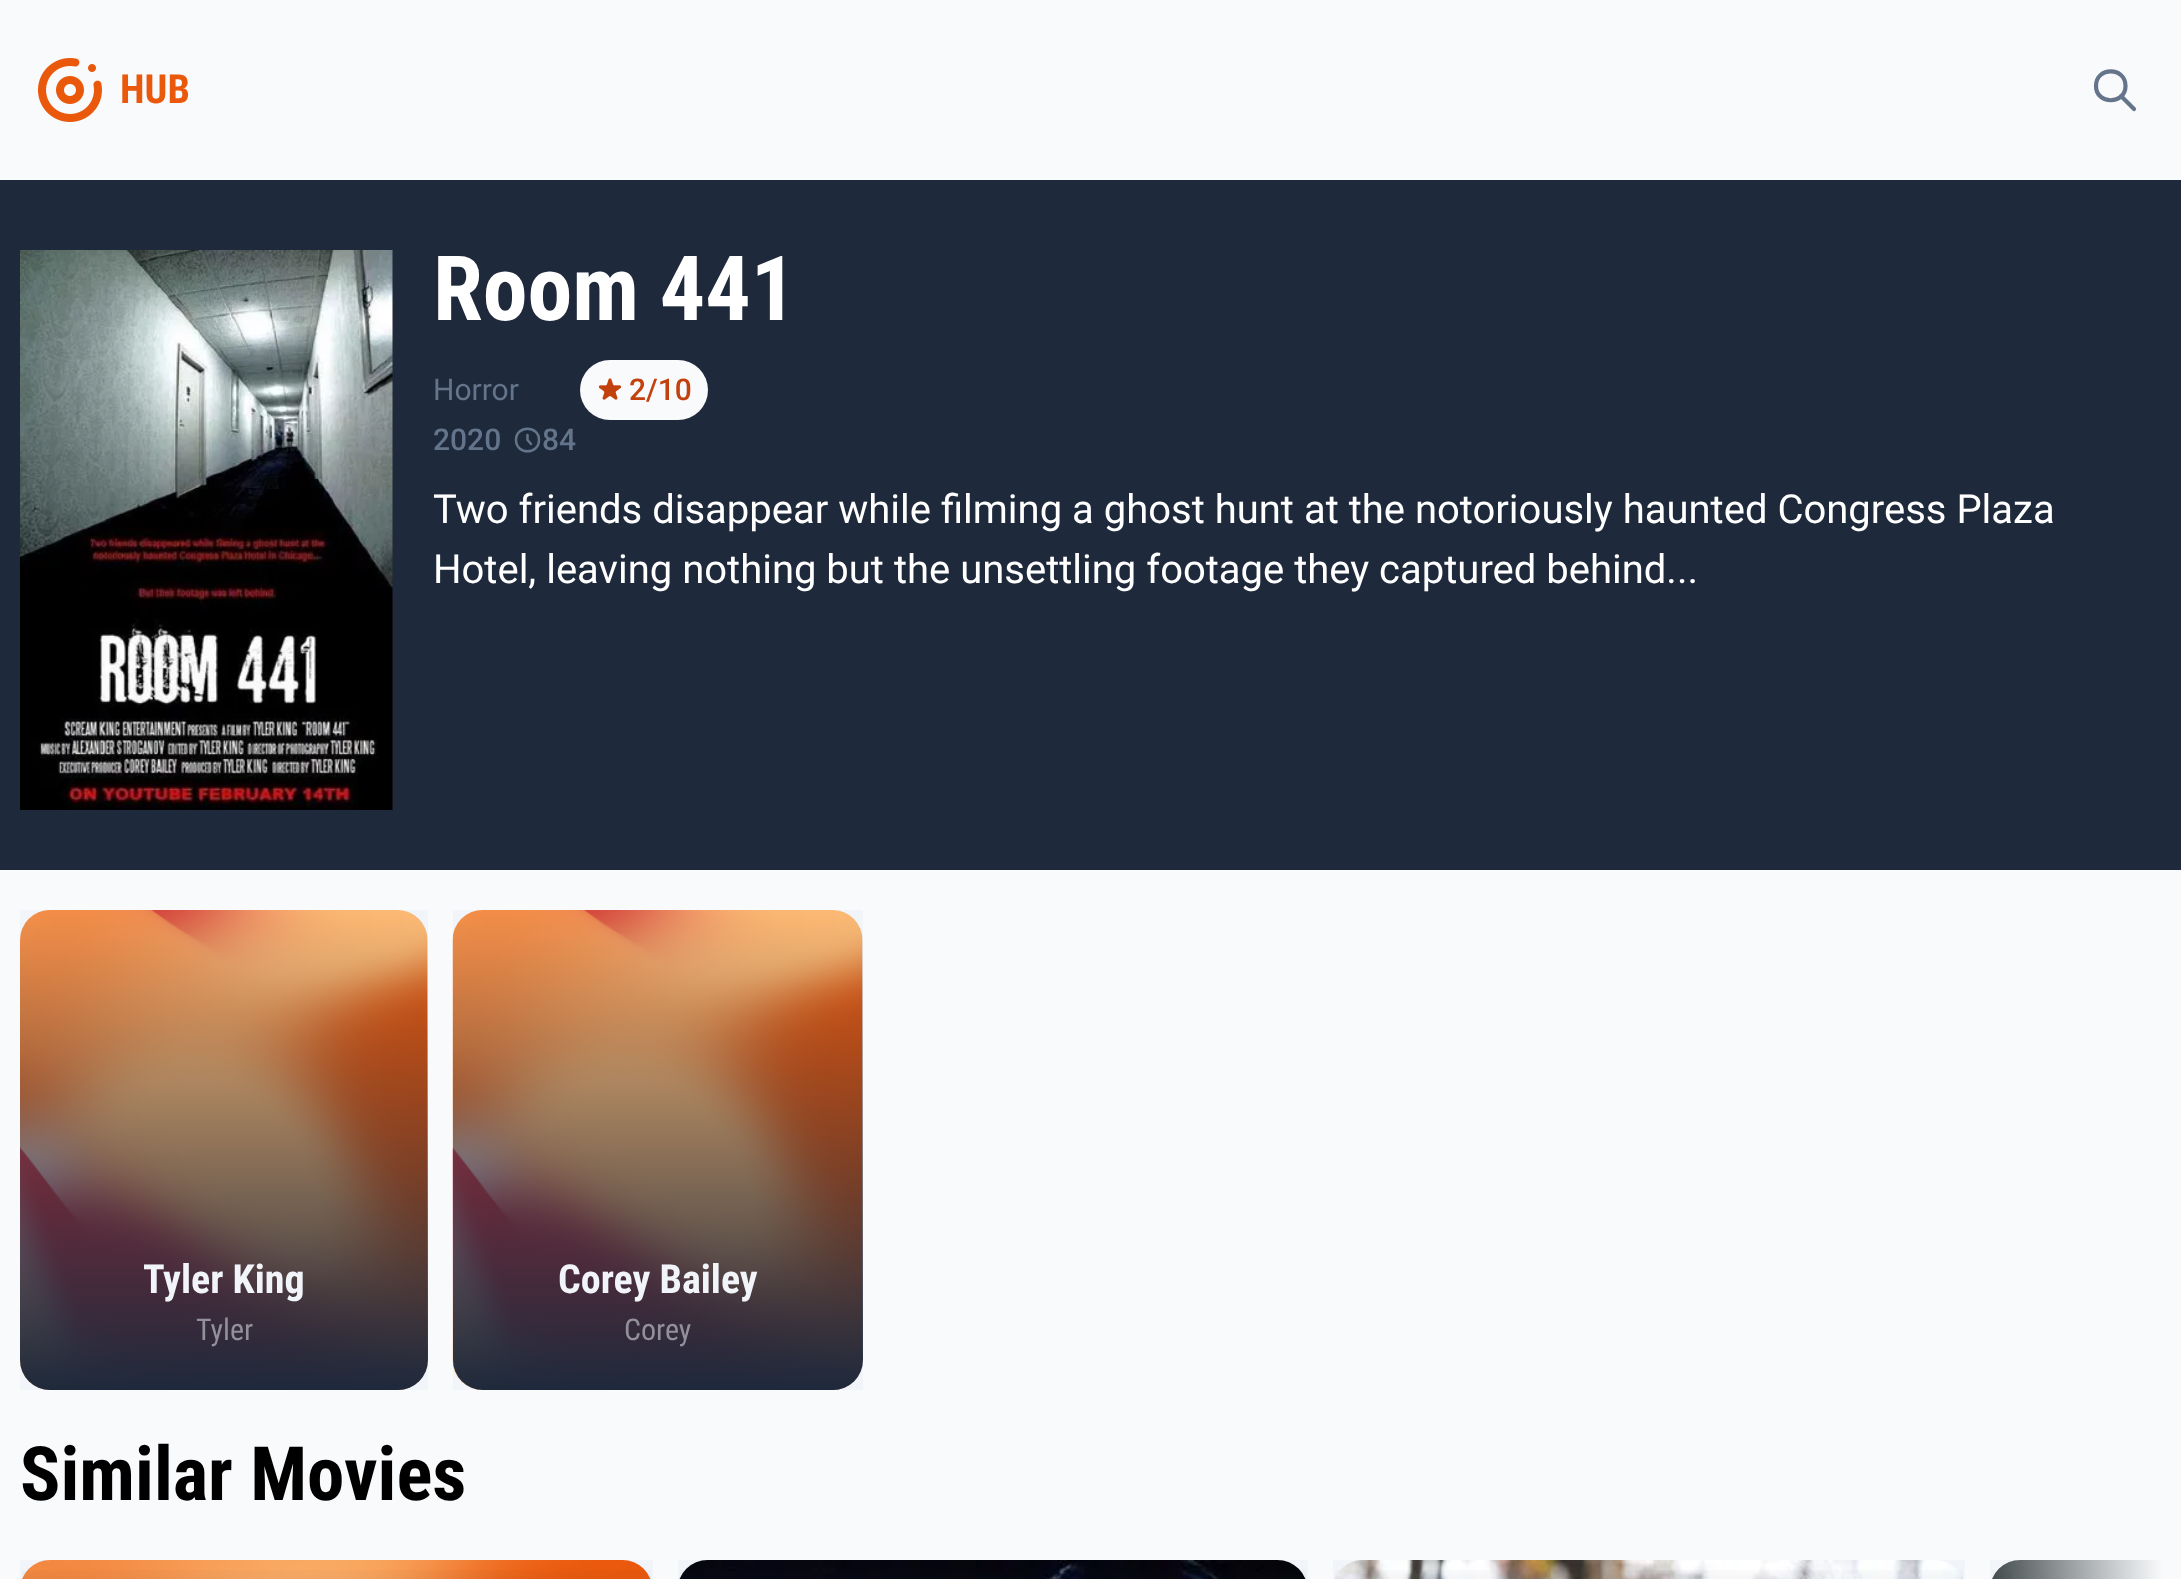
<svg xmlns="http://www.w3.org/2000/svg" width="2181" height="1579">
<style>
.a{font:bold 40px Roboto Condensed;fill:#ea580c}
.b{font:bold 90px Roboto Condensed;fill:#fff}
.c{font:30px Roboto;fill:#64748b}
.d{font:500 30px Roboto;fill:#c2410c}
.e{font:500 30px Roboto;fill:#64748b}
.f{font:40px Roboto;fill:#fff}
.g{font:bold 40px Roboto Condensed;fill:#f1f5f9}
.h{font:30px Roboto Condensed;fill:#92909a}
.i{font:bold 75px Roboto Condensed;fill:#000}
</style>
<defs>
<linearGradient id="g1" gradientUnits="userSpaceOnUse" x1="224" y1="1390" x2="224" y2="910"><stop offset="0" stop-color="#1e293b"/><stop offset="1" stop-color="#1e293b" stop-opacity="0"/></linearGradient>
<linearGradient id="g2" gradientUnits="userSpaceOnUse" x1="658" y1="1390" x2="658" y2="910"><stop offset="0" stop-color="#1e293b"/><stop offset="1" stop-color="#1e293b" stop-opacity="0"/></linearGradient>
<linearGradient id="g3" gradientUnits="userSpaceOnUse" x1="336" y1="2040" x2="336" y2="1560"><stop offset="0" stop-color="#1e293b"/><stop offset="1" stop-color="#1e293b" stop-opacity="0"/></linearGradient>
<linearGradient id="g4" gradientUnits="userSpaceOnUse" x1="993" y1="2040" x2="993" y2="1560"><stop offset="0" stop-color="#1e293b"/><stop offset="1" stop-color="#1e293b" stop-opacity="0"/></linearGradient>
<linearGradient id="g5" gradientUnits="userSpaceOnUse" x1="1649" y1="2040" x2="1649" y2="1560"><stop offset="0" stop-color="#1e293b"/><stop offset="1" stop-color="#1e293b" stop-opacity="0"/></linearGradient>
<linearGradient id="g6" gradientUnits="userSpaceOnUse" x1="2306" y1="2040" x2="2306" y2="1560"><stop offset="0" stop-color="#1e293b"/><stop offset="1" stop-color="#1e293b" stop-opacity="0"/></linearGradient>
<linearGradient id="g7" gradientUnits="userSpaceOnUse" x1="2163" y1="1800" x2="1963" y2="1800"><stop offset="0" stop-color="#f8fafc"/><stop offset="1" stop-color="#f8fafc" stop-opacity="0"/></linearGradient>
</defs>
<rect width="100%" height="100%" fill="#f8fafc"/>
<image href="1.png" x="38" y="58" width="64" height="64"/>
<path fill="none" stroke="#64748b" stroke-width="4.2" stroke-linecap="round" stroke-linejoin="round" d="M2134 109l-13-13m4.5-10c0 19-29.5 19-29.5 0c0-19.5 29.5-19.5 29.5 0z"/>
<path fill="#1e293b" d="M0 180h2181v690H0z"/>
<image href="2.png" x="20" y="250" width="373" height="560"/>
<rect fill="#f8fafc" x="580" y="360" width="128" height="60" rx="30"/>
<image href="3.png" x="598" y="378" width="24" height="22"/>
<path fill="none" stroke="#64748b" stroke-width="2.5" stroke-linecap="round" stroke-linejoin="round" d="M527.5 435v5l3.5 4m8-4c0 15-23 15-23 0c0-15 23-15 23 0z"/>
<path fill="#f1f5f9" d="M20 910h408v480H20z"/>
<image href="4.png" x="20" y="910" width="408" height="480"/>
<rect fill="url(#g1)" x="20" y="910" width="408" height="480" rx="30"/>
<path fill="#f1f5f9" d="M453 910h410v480H453z"/>
<image href="5.png" x="452" y="910" width="411" height="480"/>
<rect fill="url(#g2)" x="453" y="910" width="410" height="480" rx="30"/>
<path fill="#f1f5f9" d="M20 1560h633v19H20z"/>
<image href="6.png" x="22" y="1560" width="629" height="19"/>
<path fill="url(#g3)" d="M22 1570h629v9H22z"/>
<path fill="#f1f5f9" d="M678 1560h630v19H678z"/>
<image href="7.png" x="679" y="1560" width="627" height="19"/>
<path fill="url(#g4)" d="M680 1570h626v9H680z"/>
<path fill="#f1f5f9" d="M1333 1560h632v19H1333z"/>
<image href="8.png" x="1334" y="1560" width="629" height="19"/>
<path fill="url(#g5)" d="M1335 1570h628v9H1335z"/>
<path fill="#f1f5f9" d="M1990 1560h30v19H1990z"/>
<image href="9.png" x="1992" y="1560" width="170" height="19"/>
<path fill="url(#g6)" d="M1992 1570h5v9H1992z"/>
<path fill="url(#g7)" d="M1992 1560h170v19H1992z"/>
<text class="a" x="120" y="103">HUB</text>
<text class="b" x="433" y="320">Room 441</text>
<text class="c" x="433" y="400">Horror</text>
<text class="d" x="629" y="400">2/10</text>
<text class="e" x="433" y="450">2020</text>
<text class="e" x="542" y="450">84</text>
<text class="f" x="433" y="523">Two friends disappear while filming a ghost hunt at the notoriously haunted Congress Plaza</text>
<text class="f" x="433" y="583">Hotel, leaving nothing but the unsettling footage they captured behind...</text>
<text class="g" x="143" y="1293">Tyler King</text>
<text class="h" x="196" y="1340">Tyler</text>
<text class="g" x="558" y="1293">Corey Bailey</text>
<text class="h" x="624" y="1340">Corey</text>
<text class="i" x="20" y="1500">Similar Movies</text>
</svg>
